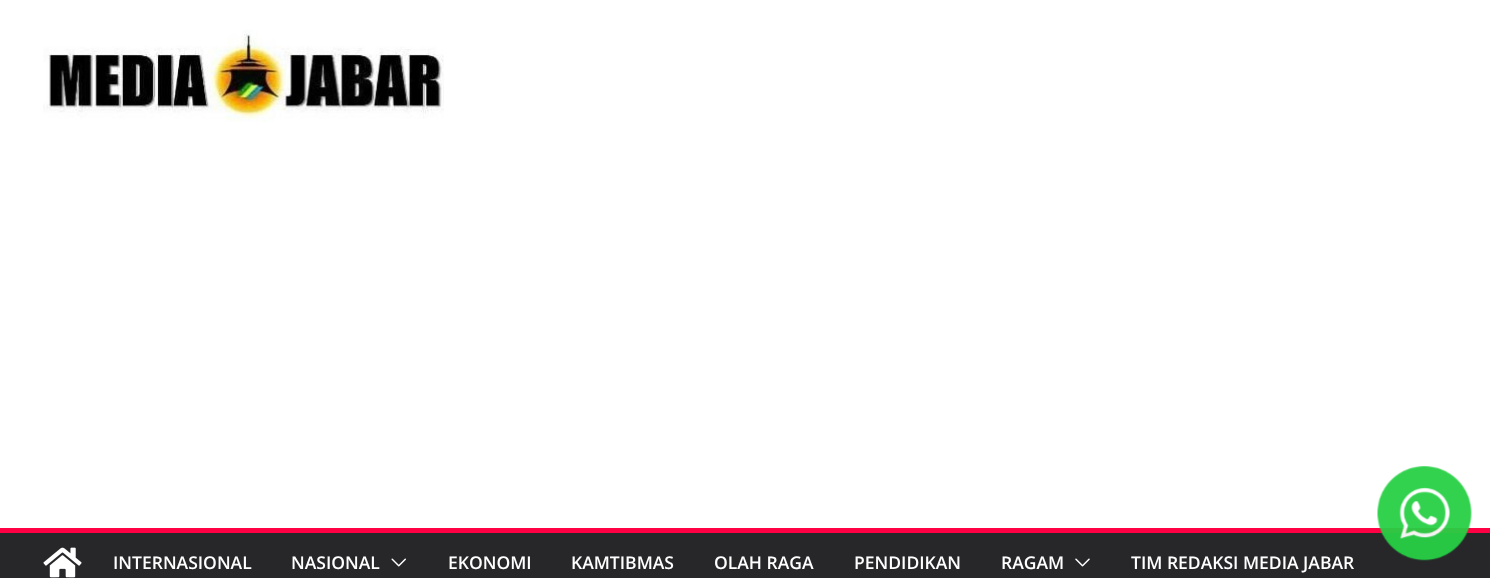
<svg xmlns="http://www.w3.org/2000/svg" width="1490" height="578">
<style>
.a{font:600 17.5px Open Sans;fill:#fff}
</style>
<rect width="100%" height="100%" fill="#fff"/>
<path fill="#27272a" d="M0 533h1490v45H0z"/>
<path fill="#f04" d="M0 528h1490v5H0z"/>
<image href="1.png" x="1377" y="466" width="95" height="95"/>
<image href="2.png" x="43" y="30" width="401" height="92"/>
<image href="3.png" x="43" y="547" width="39" height="31"/>
<image href="4.png" x="391" y="558" width="15" height="9"/>
<image href="5.png" x="1075" y="558" width="15" height="9"/>
<text class="a" x="113" y="569">INTERNASIONAL</text>
<text class="a" x="291" y="569">NASIONAL</text>
<text class="a" x="448" y="569">EKONOMI</text>
<text class="a" x="571" y="569">KAMTIBMAS</text>
<text class="a" x="714" y="569">OLAH RAGA</text>
<text class="a" x="854" y="569">PENDIDIKAN</text>
<text class="a" x="1001" y="569">RAGAM</text>
<text class="a" x="1131" y="569">TIM REDAKSI MEDIA JABAR</text>
</svg>
